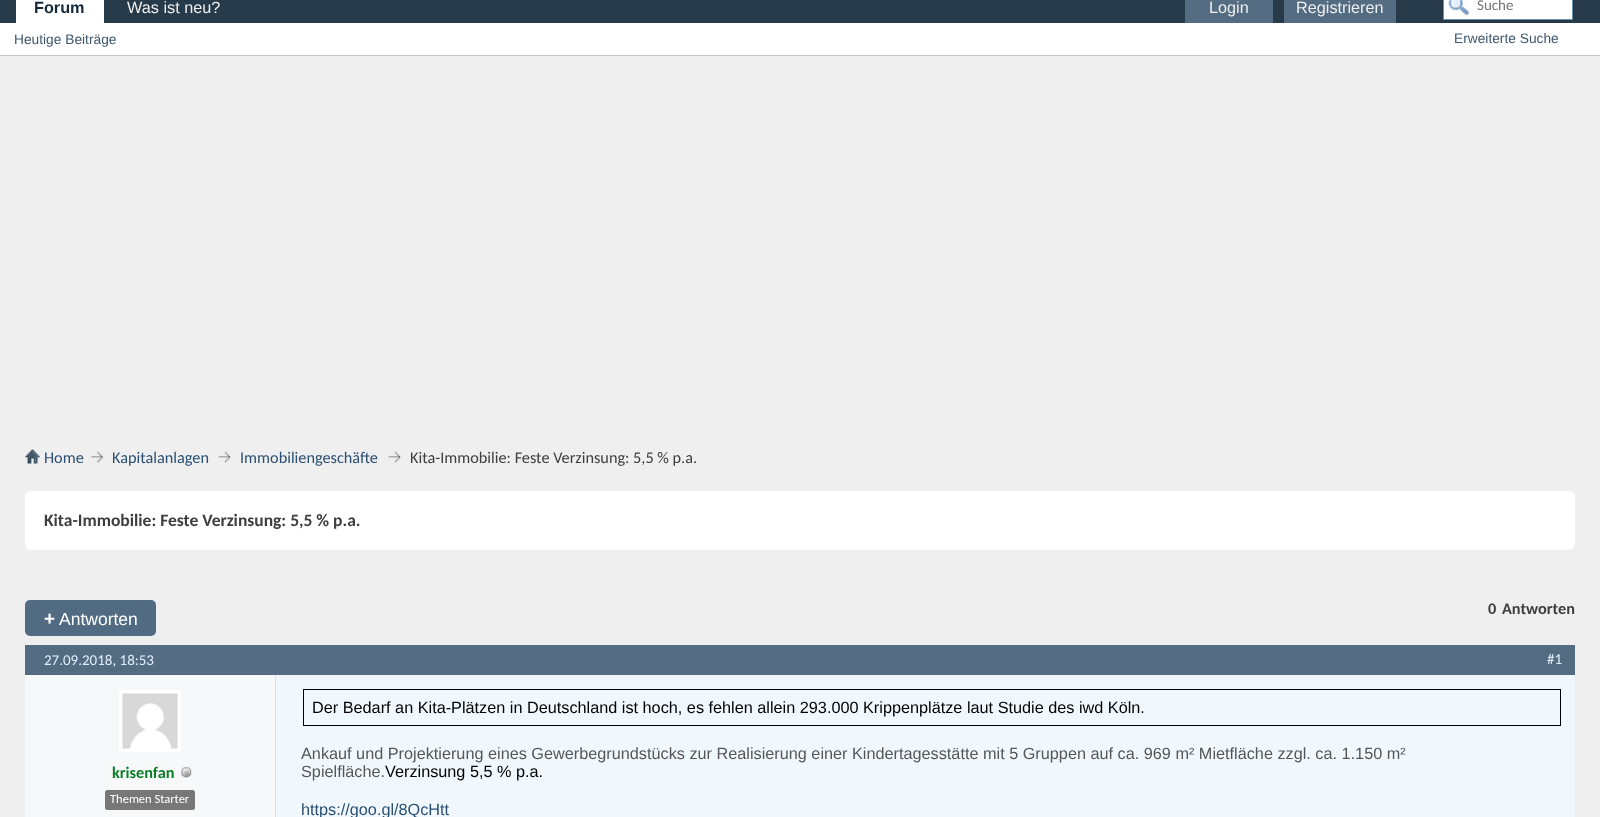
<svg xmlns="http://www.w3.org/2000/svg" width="1600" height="817">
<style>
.a{font:bold 16.25px Liberation Sans;fill:#15293a}
.b{font:16.25px Liberation Sans;fill:#eee}
.c{font:13.75px Liberation Sans;fill:#41586d}
.d{font:15px Carlito;fill:#757575}
.e{font:16.25px Carlito;fill:#2b5071}
.f{font:16.25px Carlito;fill:#3e3e3e}
.g{font:bold 17.5px Carlito;fill:#3e3e3e}
.h{font:bold 16.25px Carlito;fill:#3e3e3e}
.i{font:bold 19px Liberation Sans;fill:#fff}
.j{font:17.5px Liberation Sans;fill:#fff}
.k{font:15px Carlito;fill:#e1edf9}
.l{font:bold 16.25px Carlito;fill:#0d7e27}
.m{font:12.5px Carlito;fill:#fff}
.n{font:16.25px Liberation Sans;fill:#000}
.o{font:16.25px Liberation Sans;fill:#565656}
.p{font:16.25px Liberation Sans;fill:#2b5071}
</style>
<rect width="100%" height="100%" fill="#efefef"/>
<path fill="#273a4a" d="M0 0h1600v23H0z"/>
<path fill="#fff" d="M16 0h88v23H16z"/>
<path fill="#546c82" d="M1185 0h88v23H1185z"/>
<path fill="#546c82" d="M1284 0h112v23H1284z"/>
<path fill="#fff" d="M1444 0h128v19H1444z"/>
<image href="1.png" x="1448" y="0" width="21" height="15"/>
<path fill="none" stroke="#6b91ab" d="M1443.5 -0.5h129v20H1443.5z"/>
<path fill="#fff" d="M0 23h1600v32H0z"/>
<path fill="#c0c4c9" d="M0 55h1600v1H0z"/>
<image href="2.png" x="25" y="449" width="15" height="15"/>
<image href="3.png" x="91" y="451" width="13" height="12"/>
<image href="4.png" x="218" y="451" width="13" height="12"/>
<image href="4.png" x="388" y="451" width="13" height="12"/>
<rect fill="#fff" x="25" y="491" width="1550" height="59" rx="6"/>
<rect fill="#516b83" x="25" y="600" width="131" height="36" rx="5"/>
<path fill="#546c82" d="M25 645h1550v30H25z"/>
<path fill="#f7f8f9" d="M25 675h250v142H25z"/>
<image href="5.png" x="119" y="690" width="62" height="62"/>
<image href="6.png" x="181" y="767" width="11" height="11"/>
<rect fill="#777" x="105" y="790" width="90" height="20" rx="2.5"/>
<path fill="#f0f8fe" d="M276 675h1299v142H276z"/>
<path fill="#dde1e5" d="M275 675h1v142H275z"/>
<path fill="#000" d="M303 689h1258v1H303z"/>
<path fill="#000" d="M1560 689h1v37H1560z"/>
<path fill="#000" d="M303 725h1258v1H303z"/>
<path fill="#000" d="M303 689h1v37H303z"/>
<text class="a" x="34" y="13">Forum</text>
<text class="b" x="127" y="13">Was ist neu?</text>
<text class="b" x="1209" y="13">Login</text>
<text class="b" x="1296" y="13">Registrieren</text>
<text class="c" x="14" y="44">Heutige Beiträge</text>
<text class="d" x="1477" y="10">Suche</text>
<text class="c" x="1454" y="43">Erweiterte Suche</text>
<text class="e" x="44" y="463">Home</text>
<text class="e" x="112" y="463">Kapitalanlagen</text>
<text class="e" x="240" y="463">Immobiliengeschäfte</text>
<text class="f" x="410" y="463">Kita-Immobilie: Feste Verzinsung: 5,5 % p.a.</text>
<text class="g" x="44" y="526">Kita-Immobilie: Feste Verzinsung: 5,5 % p.a.</text>
<text class="h" x="1488" y="614">0</text>
<text class="h" x="1502" y="614">Antworten</text>
<text class="i" x="44" y="625">+</text>
<text class="j" x="59" y="625">Antworten</text>
<text class="k" x="44" y="665">27.09.2018, 18:53</text>
<text class="k" x="1547" y="664">#1</text>
<text class="l" x="112" y="778">krisenfan</text>
<text class="m" x="110" y="803">Themen Starter</text>
<text class="n" x="312" y="713">Der Bedarf an Kita-Plätzen in Deutschland ist hoch, es fehlen allein 293.000 Krippenplätze laut Studie des iwd Köln.</text>
<text class="o" x="301" y="759">Ankauf und Projektierung eines Gewerbegrundstücks zur Realisierung einer Kindertagesstätte mit 5 Gruppen auf ca. 969 m² Mietfläche zzgl. ca. 1.150 m²</text>
<text class="o" x="301" y="777">Spielfläche.</text>
<text class="n" x="385" y="777">Verzinsung 5,5 % p.a.</text>
<text class="p" x="301" y="815">https://goo.gl/8QcHtt</text>
</svg>
